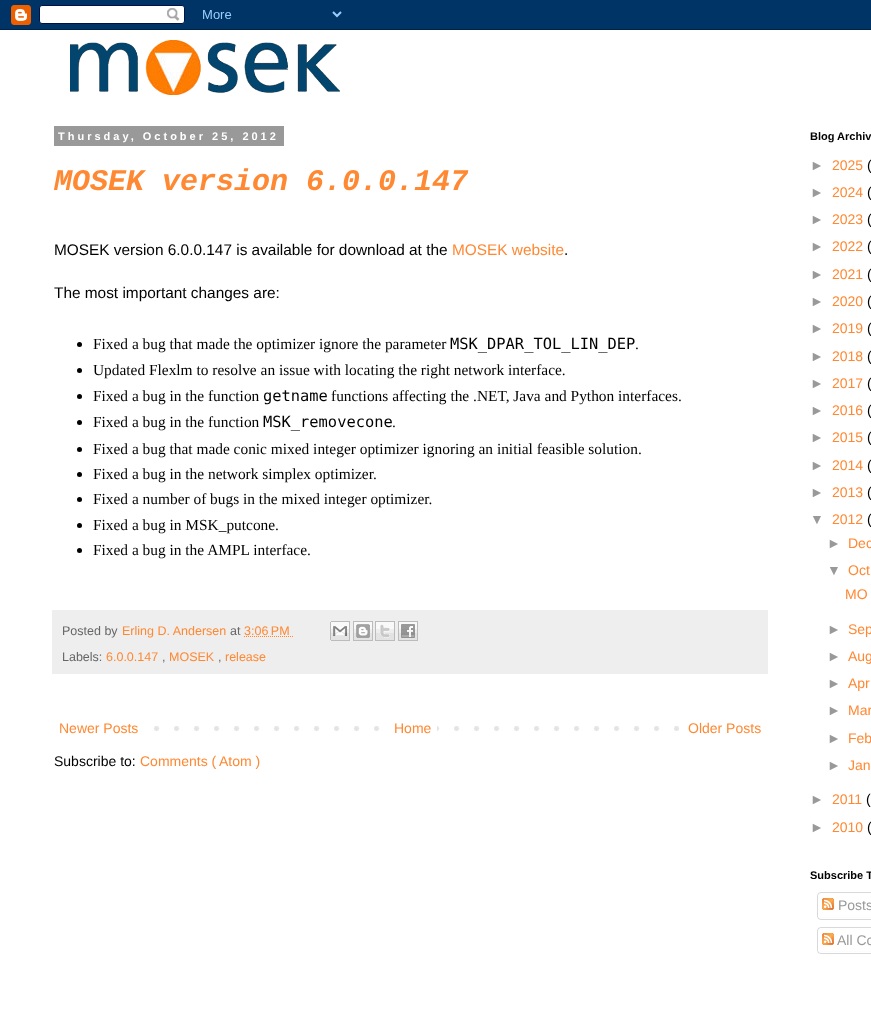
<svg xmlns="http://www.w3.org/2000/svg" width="871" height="1009">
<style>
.a{font:bold 11px Liberation Sans;letter-spacing:3px;fill:#fff}
.b{font:italic bold 30px Liberation Mono;fill:#ff8832}
.c{font:15.4px Liberation Sans;fill:#000}
.d{font:15.4px Liberation Sans;fill:#ff8832}
.e{font:15.4px Liberation Serif;fill:#000}
.f{font:15.4px DejaVu Sans Mono;fill:#000}
.g{font:12.5px Liberation Sans;fill:#666}
.h{font:12.5px Liberation Sans;fill:#ff8832}
.i{font:14px Liberation Sans;fill:#ff8832}
.j{font:14px Liberation Sans;fill:#000}
.k{font:bold 11px Liberation Sans;fill:#000}
.l{font:14px Liberation Sans;fill:#999}
</style>
<rect width="100%" height="100%" fill="#fff"/>
<image href="1.png" x="0" y="0" width="871" height="30"/>
<image href="2.png" x="70" y="40" width="270" height="55"/>
<path fill="#999" d="M54 126h230v20H54z"/>
<circle fill="#000" cx="79.5" cy="344.5" r="2.5"/>
<circle fill="#000" cx="79.5" cy="370.5" r="2.5"/>
<circle fill="#000" cx="79.5" cy="396.5" r="2.5"/>
<circle fill="#000" cx="79.5" cy="422.5" r="2.5"/>
<circle fill="#000" cx="79.5" cy="449.5" r="2.5"/>
<circle fill="#000" cx="79.5" cy="474.5" r="2.5"/>
<circle fill="#000" cx="79.5" cy="499.5" r="2.5"/>
<circle fill="#000" cx="79.5" cy="525.5" r="2.5"/>
<circle fill="#000" cx="79.5" cy="550.5" r="2.5"/>
<path fill="#eee" d="M52 610h716v64H52z"/>
<path fill="none" stroke="#ff8832" stroke-dasharray="1 1" d="M244 636.5h49.5"/>
<image href="3.png" x="330" y="621" width="20" height="20"/>
<image href="4.png" x="353" y="621" width="20" height="20"/>
<image href="5.png" x="375" y="621" width="20" height="20"/>
<image href="6.png" x="398" y="621" width="20" height="20"/>
<image href="7.png" x="154" y="726" width="525" height="5"/>
<path fill="#fff" d="M394 726h43v5H394z"/>
<image href="8.png" x="817" y="892" width="54" height="25"/>
<image href="9.png" x="822" y="898" width="12" height="12"/>
<image href="10.png" x="817" y="917" width="54" height="3"/>
<image href="11.png" x="817" y="927" width="54" height="24"/>
<image href="9.png" x="822" y="933" width="12" height="12"/>
<image href="10.png" x="817" y="951" width="54" height="3"/>
<text class="a" x="58" y="140">Thursday, October 25, 2012</text>
<text class="b" x="54" y="190">MOSEK version 6.0.0.147</text>
<text class="c" x="54" y="255">MOSEK version 6.0.0.147 is available for download at the</text>
<text class="d" x="452" y="255">MOSEK website</text>
<text class="c" x="564" y="255">.</text>
<text class="c" x="54" y="298">The most important changes are:</text>
<text class="e" x="93" y="349">Fixed a bug that made the optimizer ignore the parameter</text>
<text class="f" x="450" y="349">MSK_DPAR_TOL_LIN_DEP</text>
<text class="e" x="635" y="349">.</text>
<text class="e" x="93" y="375">Updated Flexlm to resolve an issue with locating the right network interface.</text>
<text class="e" x="93" y="401">Fixed a bug in the function</text>
<text class="f" x="263" y="401">getname</text>
<text class="e" x="331" y="401">functions affecting the .NET, Java and Python interfaces.</text>
<text class="e" x="93" y="427">Fixed a bug in the function</text>
<text class="f" x="263" y="427">MSK_removecone</text>
<text class="e" x="392" y="427">.</text>
<text class="e" x="93" y="454">Fixed a bug that made conic mixed integer optimizer ignoring an initial feasible solution.</text>
<text class="e" x="93" y="479">Fixed a bug in the network simplex optimizer.</text>
<text class="e" x="93" y="504">Fixed a number of bugs in the mixed integer optimizer.</text>
<text class="e" x="93" y="530">Fixed a bug in MSK_putcone.</text>
<text class="e" x="93" y="555">Fixed a bug in the AMPL interface.</text>
<text class="g" x="62" y="635">Posted by</text>
<text class="h" x="122" y="635">Erling D. Andersen</text>
<text class="g" x="230" y="635">at</text>
<text class="h" x="244" y="635">3:06 PM</text>
<text class="g" x="62" y="661">Labels:</text>
<text class="h" x="106" y="661">6.0.0.147</text>
<text class="g" x="162" y="661">,</text>
<text class="h" x="169" y="661">MOSEK</text>
<text class="g" x="218" y="661">,</text>
<text class="h" x="225" y="661">release</text>
<text class="i" x="59" y="733">Newer Posts</text>
<text class="i" x="394" y="733">Home</text>
<text class="i" x="688" y="733">Older Posts</text>
<text class="j" x="54" y="766">Subscribe to:</text>
<text class="i" x="140" y="766">Comments (</text>
<text class="i" x="219" y="766">Atom )</text>
<text class="k" x="810" y="140">Blog Archiv</text>
<text class="l" x="810" y="170">►</text>
<text class="i" x="832" y="170">2025</text>
<text class="j" x="867" y="170">(</text>
<text class="l" x="810" y="197">►</text>
<text class="i" x="832" y="197">2024</text>
<text class="j" x="867" y="197">(</text>
<text class="l" x="810" y="224">►</text>
<text class="i" x="832" y="224">2023</text>
<text class="j" x="867" y="224">(</text>
<text class="l" x="810" y="251">►</text>
<text class="i" x="832" y="251">2022</text>
<text class="j" x="867" y="251">(</text>
<text class="l" x="810" y="279">►</text>
<text class="i" x="832" y="279">2021</text>
<text class="j" x="867" y="279">(</text>
<text class="l" x="810" y="306">►</text>
<text class="i" x="832" y="306">2020</text>
<text class="j" x="867" y="306">(</text>
<text class="l" x="810" y="333">►</text>
<text class="i" x="832" y="333">2019</text>
<text class="j" x="867" y="333">(</text>
<text class="l" x="810" y="361">►</text>
<text class="i" x="832" y="361">2018</text>
<text class="j" x="867" y="361">(</text>
<text class="l" x="810" y="388">►</text>
<text class="i" x="832" y="388">2017</text>
<text class="j" x="867" y="388">(</text>
<text class="l" x="810" y="415">►</text>
<text class="i" x="832" y="415">2016</text>
<text class="j" x="867" y="415">(</text>
<text class="l" x="810" y="442">►</text>
<text class="i" x="832" y="442">2015</text>
<text class="j" x="867" y="442">(</text>
<text class="l" x="810" y="470">►</text>
<text class="i" x="832" y="470">2014</text>
<text class="j" x="867" y="470">(</text>
<text class="l" x="810" y="497">►</text>
<text class="i" x="832" y="497">2013</text>
<text class="j" x="867" y="497">(</text>
<text class="l" x="810" y="524">▼</text>
<text class="i" x="832" y="524">2012</text>
<text class="j" x="867" y="524">(</text>
<text class="l" x="827" y="548">►</text>
<text class="i" x="848" y="548">Dec</text>
<text class="l" x="827" y="575">▼</text>
<text class="i" x="848" y="575">Oct</text>
<text class="i" x="845" y="599">MO</text>
<text class="l" x="827" y="634">►</text>
<text class="i" x="848" y="634">Sep</text>
<text class="l" x="827" y="661">►</text>
<text class="i" x="848" y="661">Aug</text>
<text class="l" x="827" y="688">►</text>
<text class="i" x="848" y="688">Apr</text>
<text class="l" x="827" y="715">►</text>
<text class="i" x="848" y="715">Mar</text>
<text class="l" x="827" y="743">►</text>
<text class="i" x="848" y="743">Feb</text>
<text class="l" x="827" y="770">►</text>
<text class="i" x="848" y="770">Jan</text>
<text class="l" x="810" y="804">►</text>
<text class="i" x="832" y="804">2011</text>
<text class="j" x="866" y="804">(</text>
<text class="l" x="810" y="832">►</text>
<text class="i" x="832" y="832">2010</text>
<text class="j" x="867" y="832">(</text>
<text class="k" x="810" y="879">Subscribe T</text>
<text class="l" x="838" y="910">Posts</text>
<text class="l" x="837" y="945">All Co</text>
</svg>
